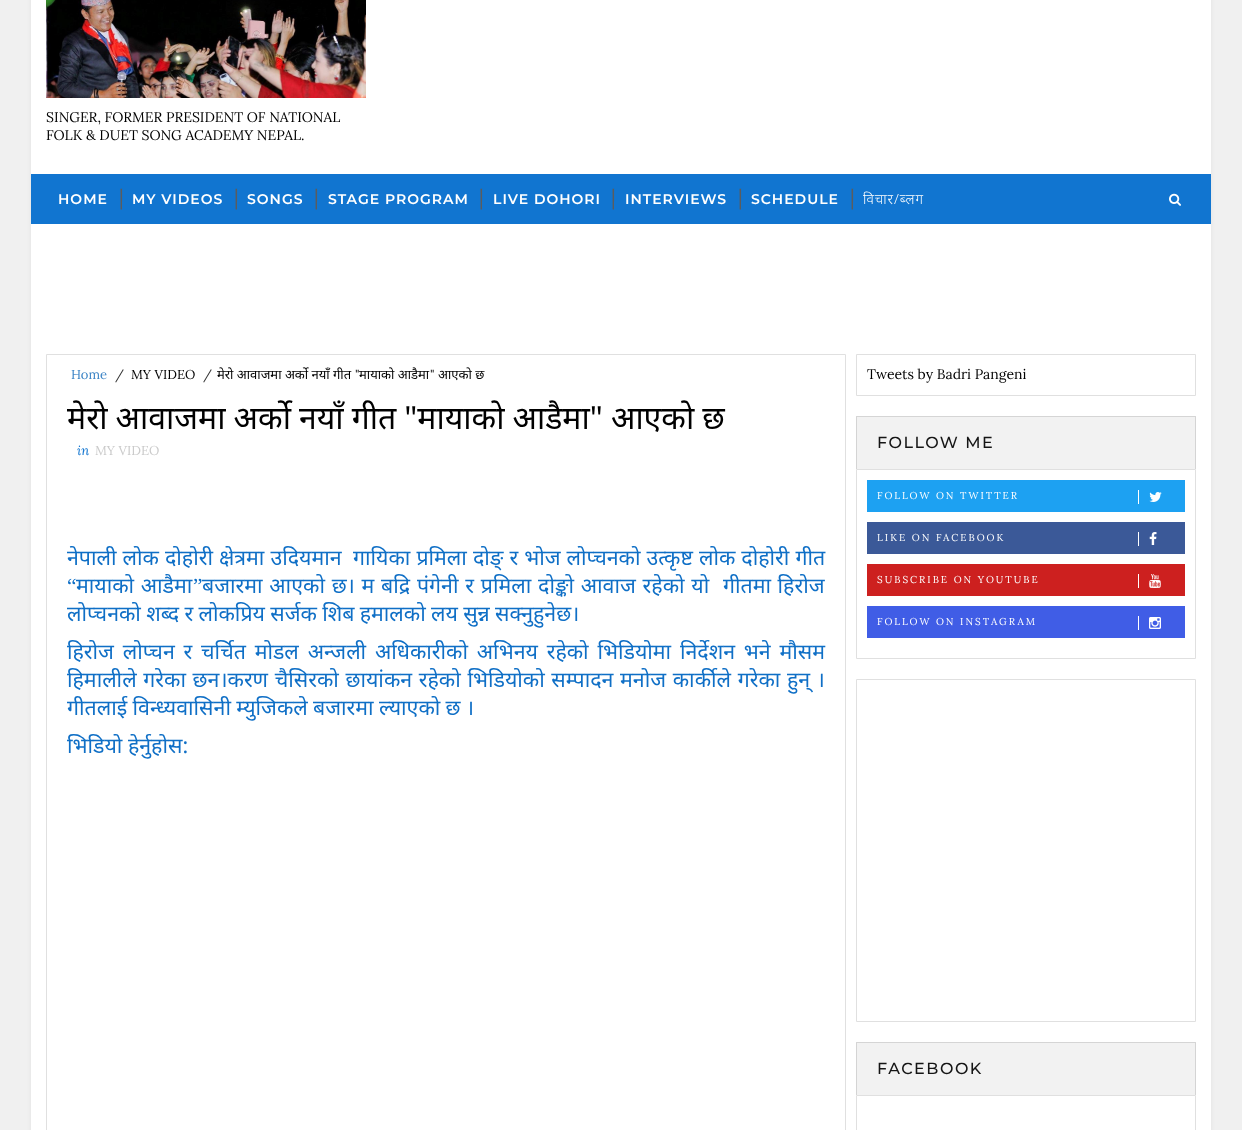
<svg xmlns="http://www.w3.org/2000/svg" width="1242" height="1130">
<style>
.a{font:14px Lora;fill:#000}
.b{font:600 14px Montserrat;letter-spacing:1px;fill:#fff}
.c{font:20px Lora;fill:#5c5c5c}
.d{font:300 14px Noto Sans;letter-spacing:1px;fill:#fff}
.e{font:13px Lora;fill:#3d85c6}
.f{font:13px Lora;fill:#2e2e2e}
.g{font:13px Lora;fill:#000}
.h{font:13px Noto Sans;fill:#000}
.i{font:32px Noto Sans;fill:#000}
.j{font:italic 13px Lora;fill:#1175d0}
.k{font:13px Lora;fill:#cbcbcb}
.l{font:21.35px Noto Sans;fill:#0f6fc6}
.m{font:21.35px Liberation Serif;fill:#0f6fc6}
.n{font:500 16px Montserrat;letter-spacing:1.5px;fill:#151515}
.o{font:10px Lora;letter-spacing:2px;fill:#fff}
</style>
<rect width="100%" height="100%" fill="#f0f0f0"/>
<path fill="#0000000d" filter="blur(2.5px)" d="M31 -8h1180v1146H31z"/>
<path fill="#fff" d="M31 0h1180v1130H31z"/>
<image href="1.png" x="46" y="0" width="320" height="98"/>
<path fill="#1175d0" d="M31 174h1180v50H31z"/>
<image href="2.png" x="1169" y="193" width="12" height="13"/>
<path fill="none" stroke="#e0e0e0" d="M46.5 354.5h799v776H46.5z"/>
<path fill="none" stroke="#e0e0e0" d="M856.5 354.5h339v41H856.5z"/>
<path fill="#f2f2f2" d="M856 416h340v53H856z"/>
<path fill="#d5d5d5" d="M856 416h340l-1 1h-338z"/>
<path fill="#0000001f" d="M1196 416v53h-1v-52z"/>
<path fill="#0000001f" d="M856 469v-53l1 1v52z"/>
<path fill="none" stroke="#e0e0e0" d="M856.5 469.5h339v189H856.5z"/>
<path fill="#1da1f2" d="M867 480h318v32H867z"/>
<path fill="#fff" d="M1138 490h1v14H1138z"/>
<image href="3.png" x="1149" y="492" width="13" height="10"/>
<path fill="#3b5998" d="M867 522h318v32H867z"/>
<path fill="#fff" d="M1138 532h1v14H1138z"/>
<image href="4.png" x="1149" y="532" width="8" height="13"/>
<path fill="#cd201f" d="M867 564h318v32H867z"/>
<path fill="#fff" d="M1138 574h1v14H1138z"/>
<image href="5.png" x="1149" y="574" width="12" height="14"/>
<path fill="#405de6" d="M867 606h318v32H867z"/>
<path fill="#fff" d="M1138 616h1v14H1138z"/>
<image href="6.png" x="1149" y="617" width="12" height="12"/>
<path fill="none" stroke="#e0e0e0" d="M856.5 679.5h339v342H856.5z"/>
<path fill="#f2f2f2" d="M856 1042h340v53H856z"/>
<path fill="#d5d5d5" d="M856 1042h340l-1 1h-338z"/>
<path fill="#0000001f" d="M1196 1042v53h-1v-52z"/>
<path fill="#0000001f" d="M856 1095v-53l1 1v52z"/>
<path fill="none" stroke="#e0e0e0" d="M856.5 1095.5h339v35H856.5z"/>
<text class="a" x="46" y="122">SINGER, FORMER PRESIDENT OF NATIONAL</text>
<text class="a" x="46" y="140">FOLK &amp; DUET SONG ACADEMY NEPAL.</text>
<text class="b" x="58" y="204">HOME</text>
<text class="c" x="119" y="204">|</text>
<text class="b" x="132" y="204">MY VIDEOS</text>
<text class="c" x="234" y="204">|</text>
<text class="b" x="247" y="204">SONGS</text>
<text class="c" x="314" y="204">|</text>
<text class="b" x="328" y="204">STAGE PROGRAM</text>
<text class="c" x="479" y="204">|</text>
<text class="b" x="493" y="204">LIVE DOHORI</text>
<text class="c" x="611" y="204">|</text>
<text class="b" x="625" y="204">INTERVIEWS</text>
<text class="c" x="738" y="204">|</text>
<text class="b" x="751" y="204">SCHEDULE</text>
<text class="c" x="850" y="204">|</text>
<text class="d" x="863" y="204">विचार/ब्लग</text>
<text class="e" x="71" y="379">Home</text>
<text class="f" x="115" y="379">/</text>
<text class="g" x="131" y="379">MY VIDEO</text>
<text class="f" x="203" y="379">/</text>
<text class="h" x="217" y="379">मेरो आवाजमा अर्को नयाँ गीत</text>
<text class="g" x="355" y="379">"</text>
<text class="h" x="359" y="379">मायाको आडैमा</text>
<text class="g" x="430" y="379">"</text>
<text class="h" x="438" y="379">आएको छ</text>
<text class="i" x="67" y="429" word-spacing="-0.25">मेरो आवाजमा अर्को नयाँ गीत "मायाको आडैमा" आएको छ</text>
<text class="j" x="77" y="455">in</text>
<text class="k" x="95" y="455">MY VIDEO</text>
<text class="l" x="67" y="565" word-spacing="0.5">नेपाली लोक दोहोरी क्षेत्रमा उदियमान</text>
<text class="l" x="353" y="565" word-spacing="0.5">गायिका प्रमिला दोङ् र भोज लोप्चनको उत्कृष्ट लोक दोहोरी गीत</text>
<text class="m" x="67" y="593">“</text>
<text class="l" x="76" y="593" word-spacing="1">मायाको आडैमा</text>
<text class="m" x="193" y="593">”</text>
<text class="l" x="202" y="593" word-spacing="1.25">बजारमा आएको छ। म बद्रि पंगेनी र प्रमिला दोङ्को आवाज रहेको यो</text>
<text class="l" x="723" y="593" word-spacing="1">गीतमा हिरोज</text>
<text class="l" x="67" y="621" word-spacing="-0.25">लोप्चनको शब्द र लोकप्रिय सर्जक शिब हमालको लय सुन्न सक्नुहुनेछ।</text>
<text class="l" x="67" y="659" word-spacing="3.25">हिरोज लोप्चन र चर्चित मोडल अन्जली अधिकारीको अभिनय रहेको भिडियोमा निर्देशन भने मौसम</text>
<text class="l" x="67" y="687" word-spacing="1.1">हिमालीले गरेका छन।करण चैसिरको छायांकन रहेको भिडियोको सम्पादन मनोज कार्कीले गरेका हुन् ।</text>
<text class="l" x="67" y="715" word-spacing="-0.25">गीतलाई विन्ध्यवासिनी म्युजिकले बजारमा ल्याएको छ ।</text>
<text class="l" x="67" y="753">भिडियो हेर्नुहोस:</text>
<text class="a" x="867" y="379">Tweets by Badri Pangeni</text>
<text class="n" x="877" y="448">FOLLOW ME</text>
<text class="o" x="877" y="499">FOLLOW ON TWITTER</text>
<text class="o" x="877" y="541">LIKE ON FACEBOOK</text>
<text class="o" x="877" y="583">SUBSCRIBE ON YOUTUBE</text>
<text class="o" x="877" y="625">FOLLOW ON INSTAGRAM</text>
<text class="n" x="877" y="1074">FACEBOOK</text>
</svg>
